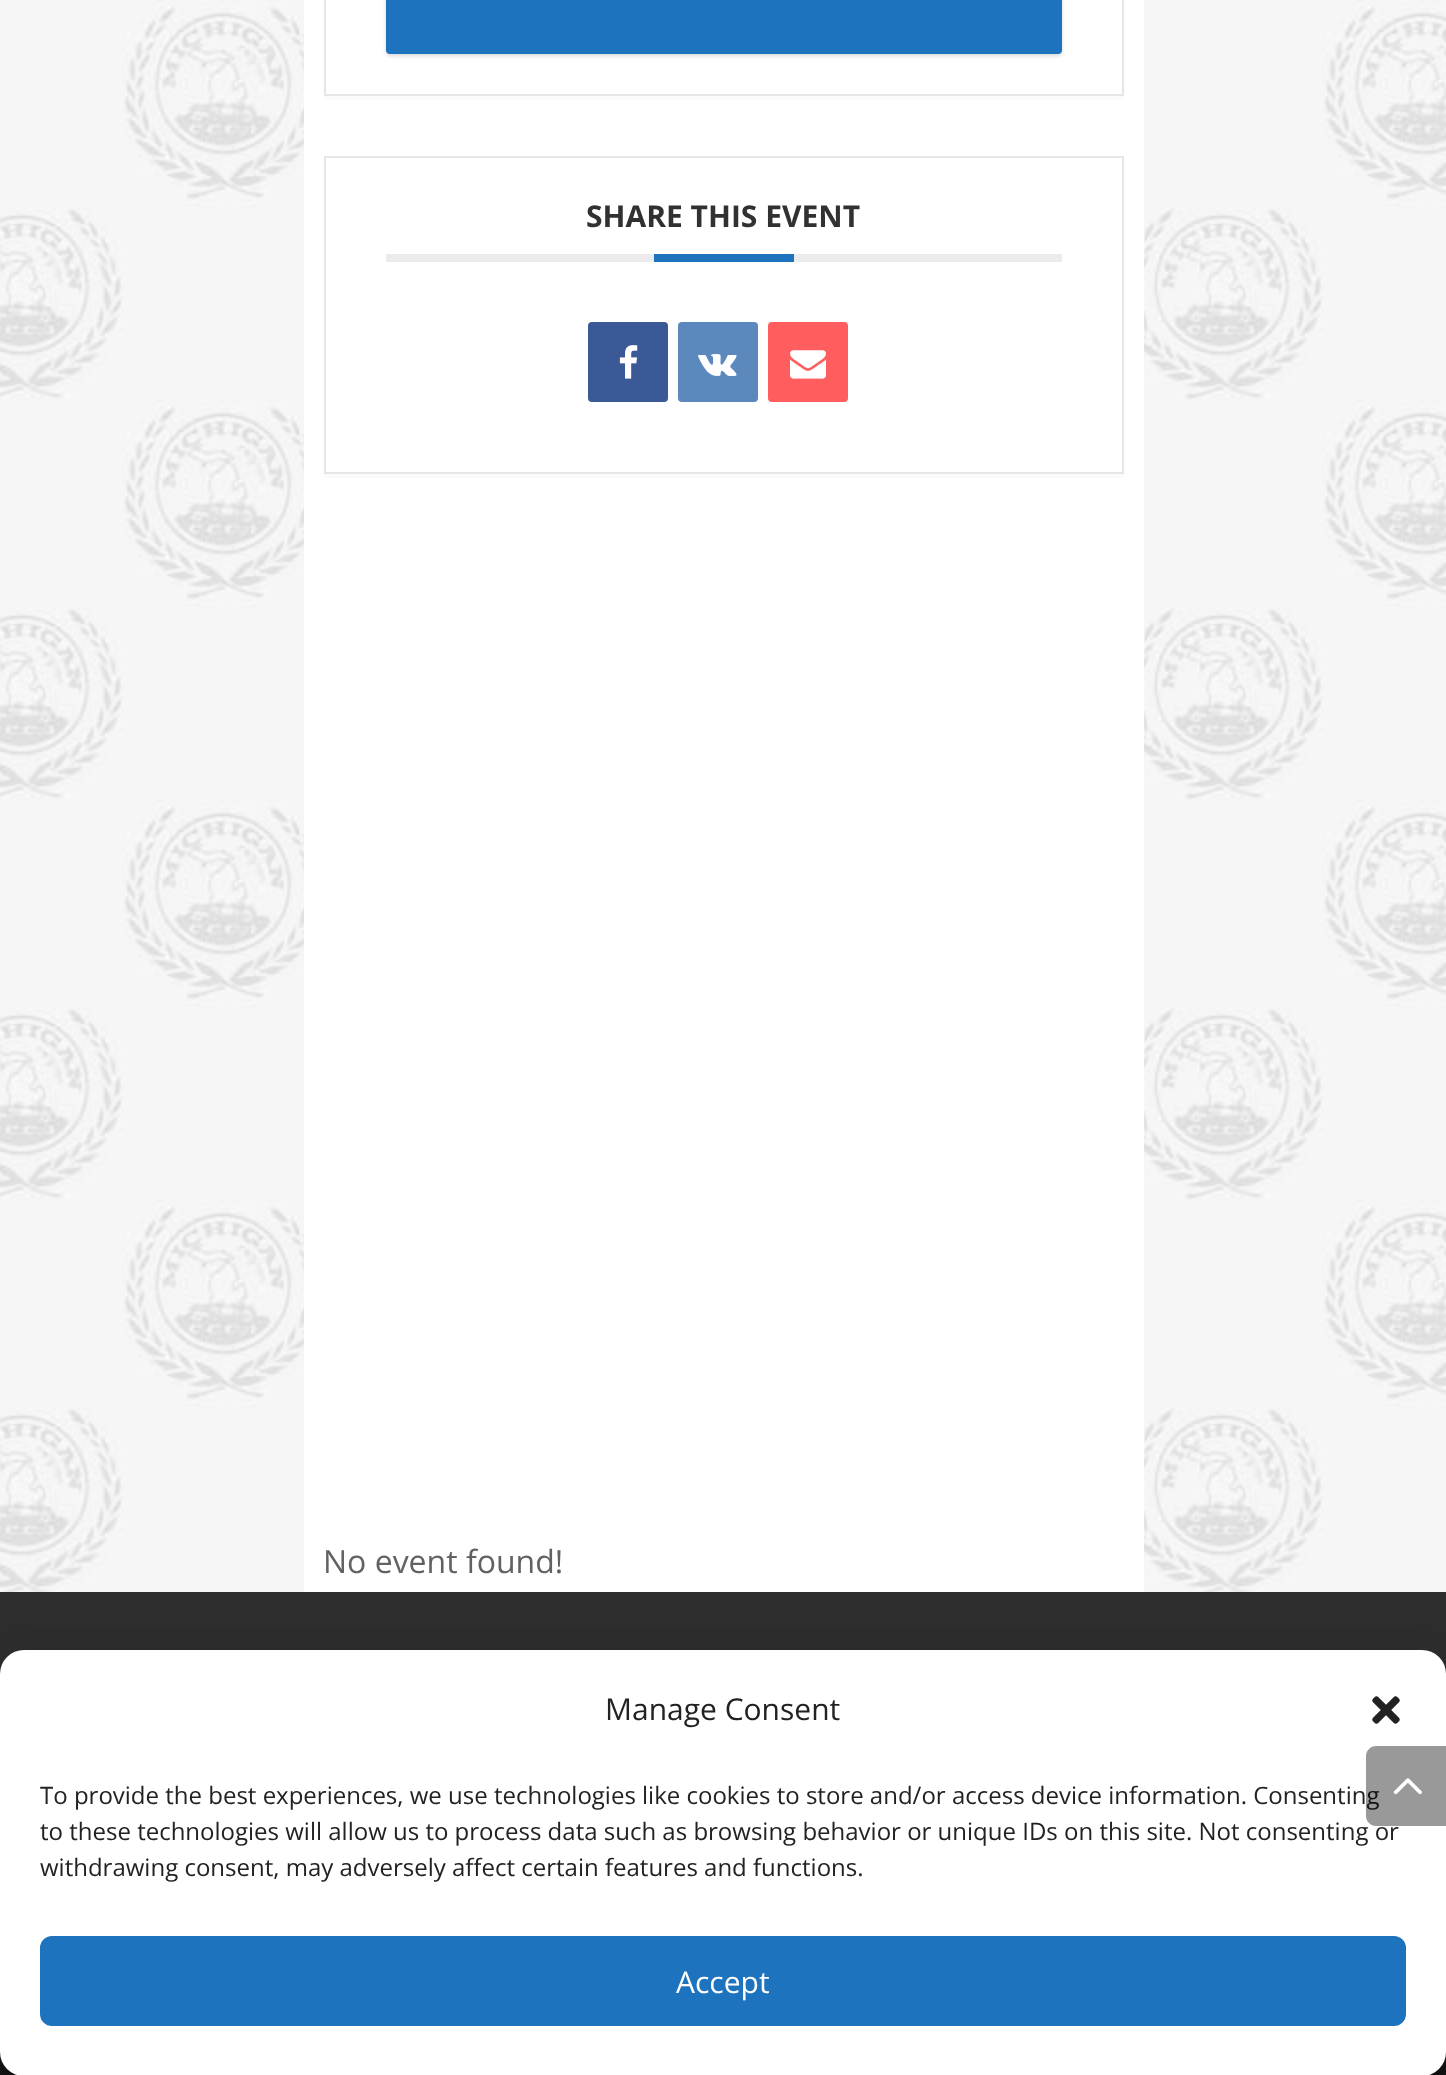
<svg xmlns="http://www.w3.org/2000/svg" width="1446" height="2075">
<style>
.a{font:bold 30px Open Sans;fill:#313131}
.b{font:32px Open Sans;fill:#626262}
.c{font:30px Open Sans;fill:#222}
.d{font:24px Open Sans;fill:#222}
.e{font:30px Open Sans;fill:#fff}
</style>
<rect width="100%" height="100%" fill="#fff"/>
<image href="1.png" x="0" y="0" width="1446" height="1592"/>
<path fill="#fff" d="M304 0h840v1592H304z"/>
<path fill="#fbfbfb" d="M324 96h800v4H324z"/>
<path fill="none" stroke="#e6e6e6" stroke-width="2" d="M325 -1h798v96H325z"/>
<rect fill="#00000026" filter="blur(2px)" x="386" y="-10" width="676" height="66" rx="4"/>
<rect fill="#1e73be" x="386" y="-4" width="676" height="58" rx="4"/>
<path fill="#fbfbfb" d="M324 474h800v4H324z"/>
<path fill="none" stroke="#e6e6e6" stroke-width="2" d="M325 157h798v316H325z"/>
<path fill="#ebebeb" d="M386 254h676v8H386z"/>
<path fill="#1e73be" d="M654 254h140v8H654z"/>
<rect fill="#3b5996" x="588" y="322" width="80" height="80" rx="4"/>
<image href="2.png" x="619" y="345" width="19" height="34"/>
<rect fill="#5b88bd" x="678" y="322" width="80" height="80" rx="4"/>
<image href="3.png" x="698" y="354" width="39" height="22"/>
<rect fill="#ff5d5e" x="768" y="322" width="80" height="80" rx="4"/>
<image href="4.png" x="790" y="350" width="36" height="29"/>
<path fill="#2d2d2d" d="M0 1592h1446v82H0z"/>
<path fill="#171717" d="M0 2052h1446v23H0z"/>
<rect fill="#0000003b" filter="blur(6px)" y="1662" width="1446" height="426" rx="24"/>
<rect fill="#00000030" filter="blur(20px)" y="1670" width="1446" height="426" rx="24"/>
<rect fill="#fff" y="1650" width="1446" height="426" rx="24"/>
<image href="6.png" x="1372" y="1696" width="28" height="28"/>
<rect fill="#1e73be" stroke="#1e73be" stroke-width="2" x="41" y="1937" width="1364" height="88" rx="11"/>
<text class="a" x="586" y="227">SHARE THIS EVENT</text>
<text class="b" x="323" y="1573">No event found!</text>
<text class="c" x="605" y="1720">Manage Consent</text>
<text class="d" x="40" y="1804">To provide the best experiences, we use technologies like cookies to store and/or access device information. Consenting</text>
<text class="d" x="40" y="1840">to these technologies will allow us to process data such as browsing behavior or unique IDs on this site. Not consenting or</text>
<path fill="#00000066" d="M1376 1746h70v80h-70c-5.5 0-10-4.5-10-10v-60c0-5.5 4.5-10 10-10z"/>
<image href="5.png" x="1393" y="1778" width="29" height="17"/>
<text class="d" x="40" y="1876">withdrawing consent, may adversely affect certain features and functions.</text>
<text class="e" x="676" y="1993">Accept</text>
</svg>
